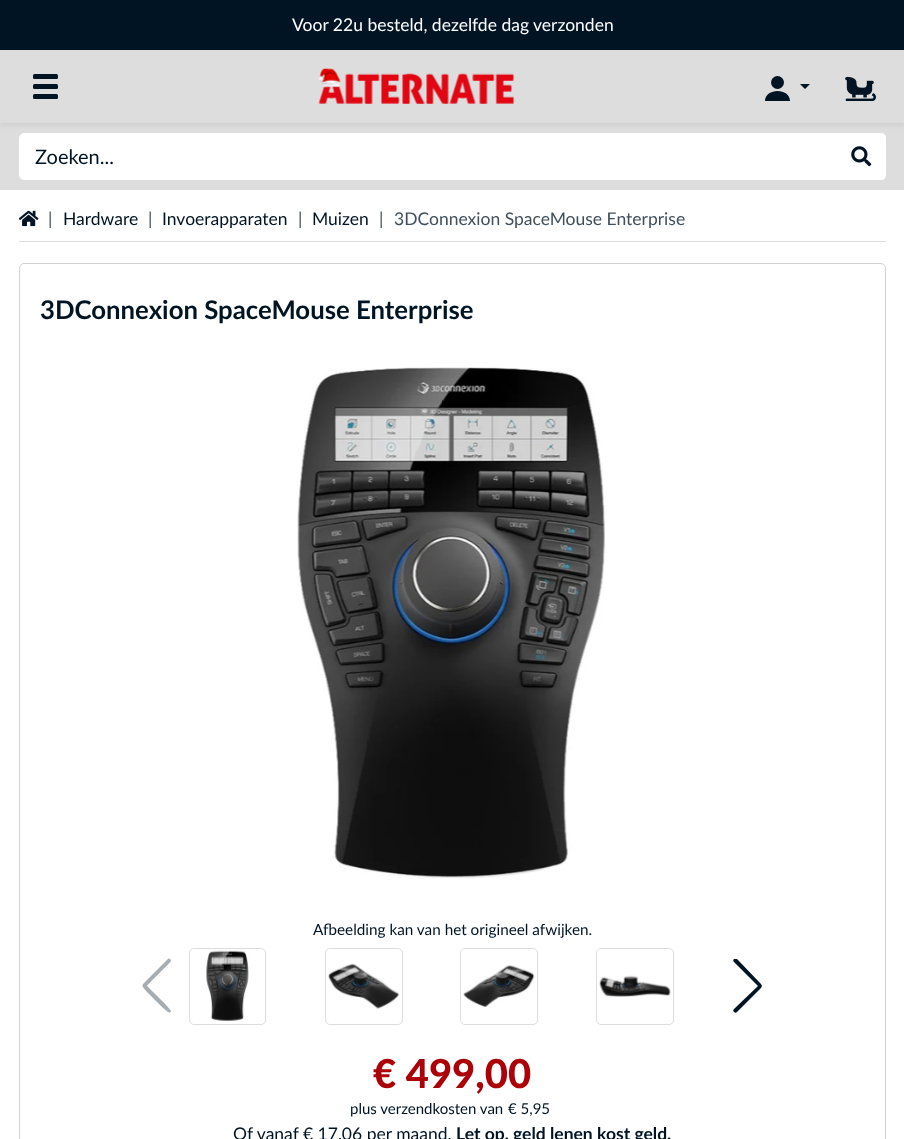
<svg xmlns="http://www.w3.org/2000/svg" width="904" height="1139">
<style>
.a{font:17.5px Lato;fill:#fff}
.b{font:20px Lato;fill:#001424}
.c{font:17.5px Lato;fill:#404f5b}
.d{font:17.5px Lato;fill:#001424}
.e{font:bold 25.75px Lato;fill:#001424}
.f{font:15.3px Lato;fill:#001424}
.g{font:900 40px Lato;fill:#ad0109}
.h{font:15px Lato;fill:#001424}
.i{font:bold 17.5px Lato;fill:#001424}
</style>
<defs>
<clipPath id="clip1"><path d="M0 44h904v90h-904zm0 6h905v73h-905z" clip-rule="evenodd"/></clipPath>
</defs>
<rect width="100%" height="100%" fill="#fff"/>
<path fill="#001424" d="M0 0h904v50H0z"/>
<path fill="#ddd" d="M0 50h904v140H0z"/>
<g clip-path="url(#clip1)">
<path fill="#00000012" filter="blur(2.5px)" d="M0 53h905v72H0z"/>
</g>
<rect fill="#001424" x="33" y="74" width="25" height="5" rx="1.5"/>
<rect fill="#001424" x="33" y="84" width="25" height="5" rx="1.5"/>
<rect fill="#001424" x="33" y="94" width="25" height="5" rx="1.5"/>
<image href="1.png" x="318" y="68" width="196" height="36"/>
<circle fill="#001424" cx="777.5" cy="82.5" r="6.5"/>
<path fill="#001424" d="M790 101h-25c0-13.5 25-13.5 25 0zm10-17h10l-5 5z"/>
<image href="2.png" x="845" y="76" width="31" height="25"/>
<path fill="#fff" stroke="#fff" d="M24 133.5h811.5v46h-811.5c-2.5 0-4.5-2-4.5-4.5v-37c0-2.5 2-4.5 4.5-4.5z"/>
<path fill="#fff" d="M836 133h45c3 0 5 2 5 5v37c0 3-2 5-5 5h-45z"/>
<image href="3.png" x="851" y="146" width="21" height="21"/>
<path fill="#ddd" d="M19 241h867v1H19z"/>
<image href="4.png" x="19" y="210" width="20" height="17"/>
<rect fill="none" stroke="#d2d2d2" x="19.5" y="263.5" width="866" height="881" rx="4.5"/>
<image href="5.png" x="297" y="367" width="310" height="512"/>
<path fill="#a6adb2" d="M168 959c1-1 3 0 3 2c0 1-22 22-24 25c3 3 24 23 24 25c-1 4-5-1-8-3l-16-16c-6-7-6-6 0-12z"/>
<rect fill="none" stroke="#ddd" x="189.5" y="948.5" width="76" height="76" rx="4.5"/>
<rect fill="none" stroke="#fff" stroke-width="3" x="191.5" y="950.5" width="72" height="72" rx="3.5"/>
<image href="6.png" x="206" y="950" width="43" height="72"/>
<rect fill="none" stroke="#ddd" x="325.5" y="948.5" width="77" height="76" rx="4.5"/>
<rect fill="none" stroke="#fff" stroke-width="3" x="327.5" y="950.5" width="72" height="72" rx="3.5"/>
<image href="7.png" x="328" y="963" width="72" height="46"/>
<rect fill="none" stroke="#ddd" x="460.5" y="948.5" width="77" height="76" rx="4.5"/>
<rect fill="none" stroke="#fff" stroke-width="3" x="462.5" y="950.5" width="72" height="72" rx="3.5"/>
<image href="8.png" x="463" y="965" width="72" height="42"/>
<rect fill="none" stroke="#ddd" x="596.5" y="948.5" width="77" height="76" rx="4.5"/>
<rect fill="none" stroke="#fff" stroke-width="3" x="599.5" y="950.5" width="72" height="72" rx="3.5"/>
<image href="9.png" x="599" y="975" width="72" height="22"/>
<path fill="#001424" d="M734 1012c-1-1-1-2 0-3l24-23l-24-24c-1-1-1-2 0-3c1 0 2 0 3 0l24 25l1 2l-1 2l-24 24c-1 1-2 1-3 0z"/>
<text class="a" x="292" y="31">Voor 22u besteld, dezelfde dag verzonden</text>
<text class="b" x="35" y="164">Zoeken...</text>
<text class="c" x="48" y="225">|</text>
<text class="d" x="63" y="225">Hardware</text>
<text class="c" x="148" y="225">|</text>
<text class="d" x="162" y="225">Invoerapparaten</text>
<text class="c" x="298" y="225">|</text>
<text class="d" x="312" y="225">Muizen</text>
<text class="c" x="379" y="225">|</text>
<text class="c" x="394" y="225">3DConnexion SpaceMouse Enterprise</text>
<text class="e" x="40" y="319">3DConnexion SpaceMouse Enterprise</text>
<text class="f" x="313" y="935">Afbeelding kan van het origineel afwijken.</text>
<text class="g" x="373" y="1088">€ 499,00</text>
<text class="h" x="350" y="1114">plus verzendkosten van</text>
<text class="h" x="508" y="1114">€ 5,95</text>
<text class="d" x="233" y="1140">Of vanaf € 17,06 per maand.</text>
<text class="i" x="456" y="1140">Let op, geld lenen kost geld.</text>
</svg>
